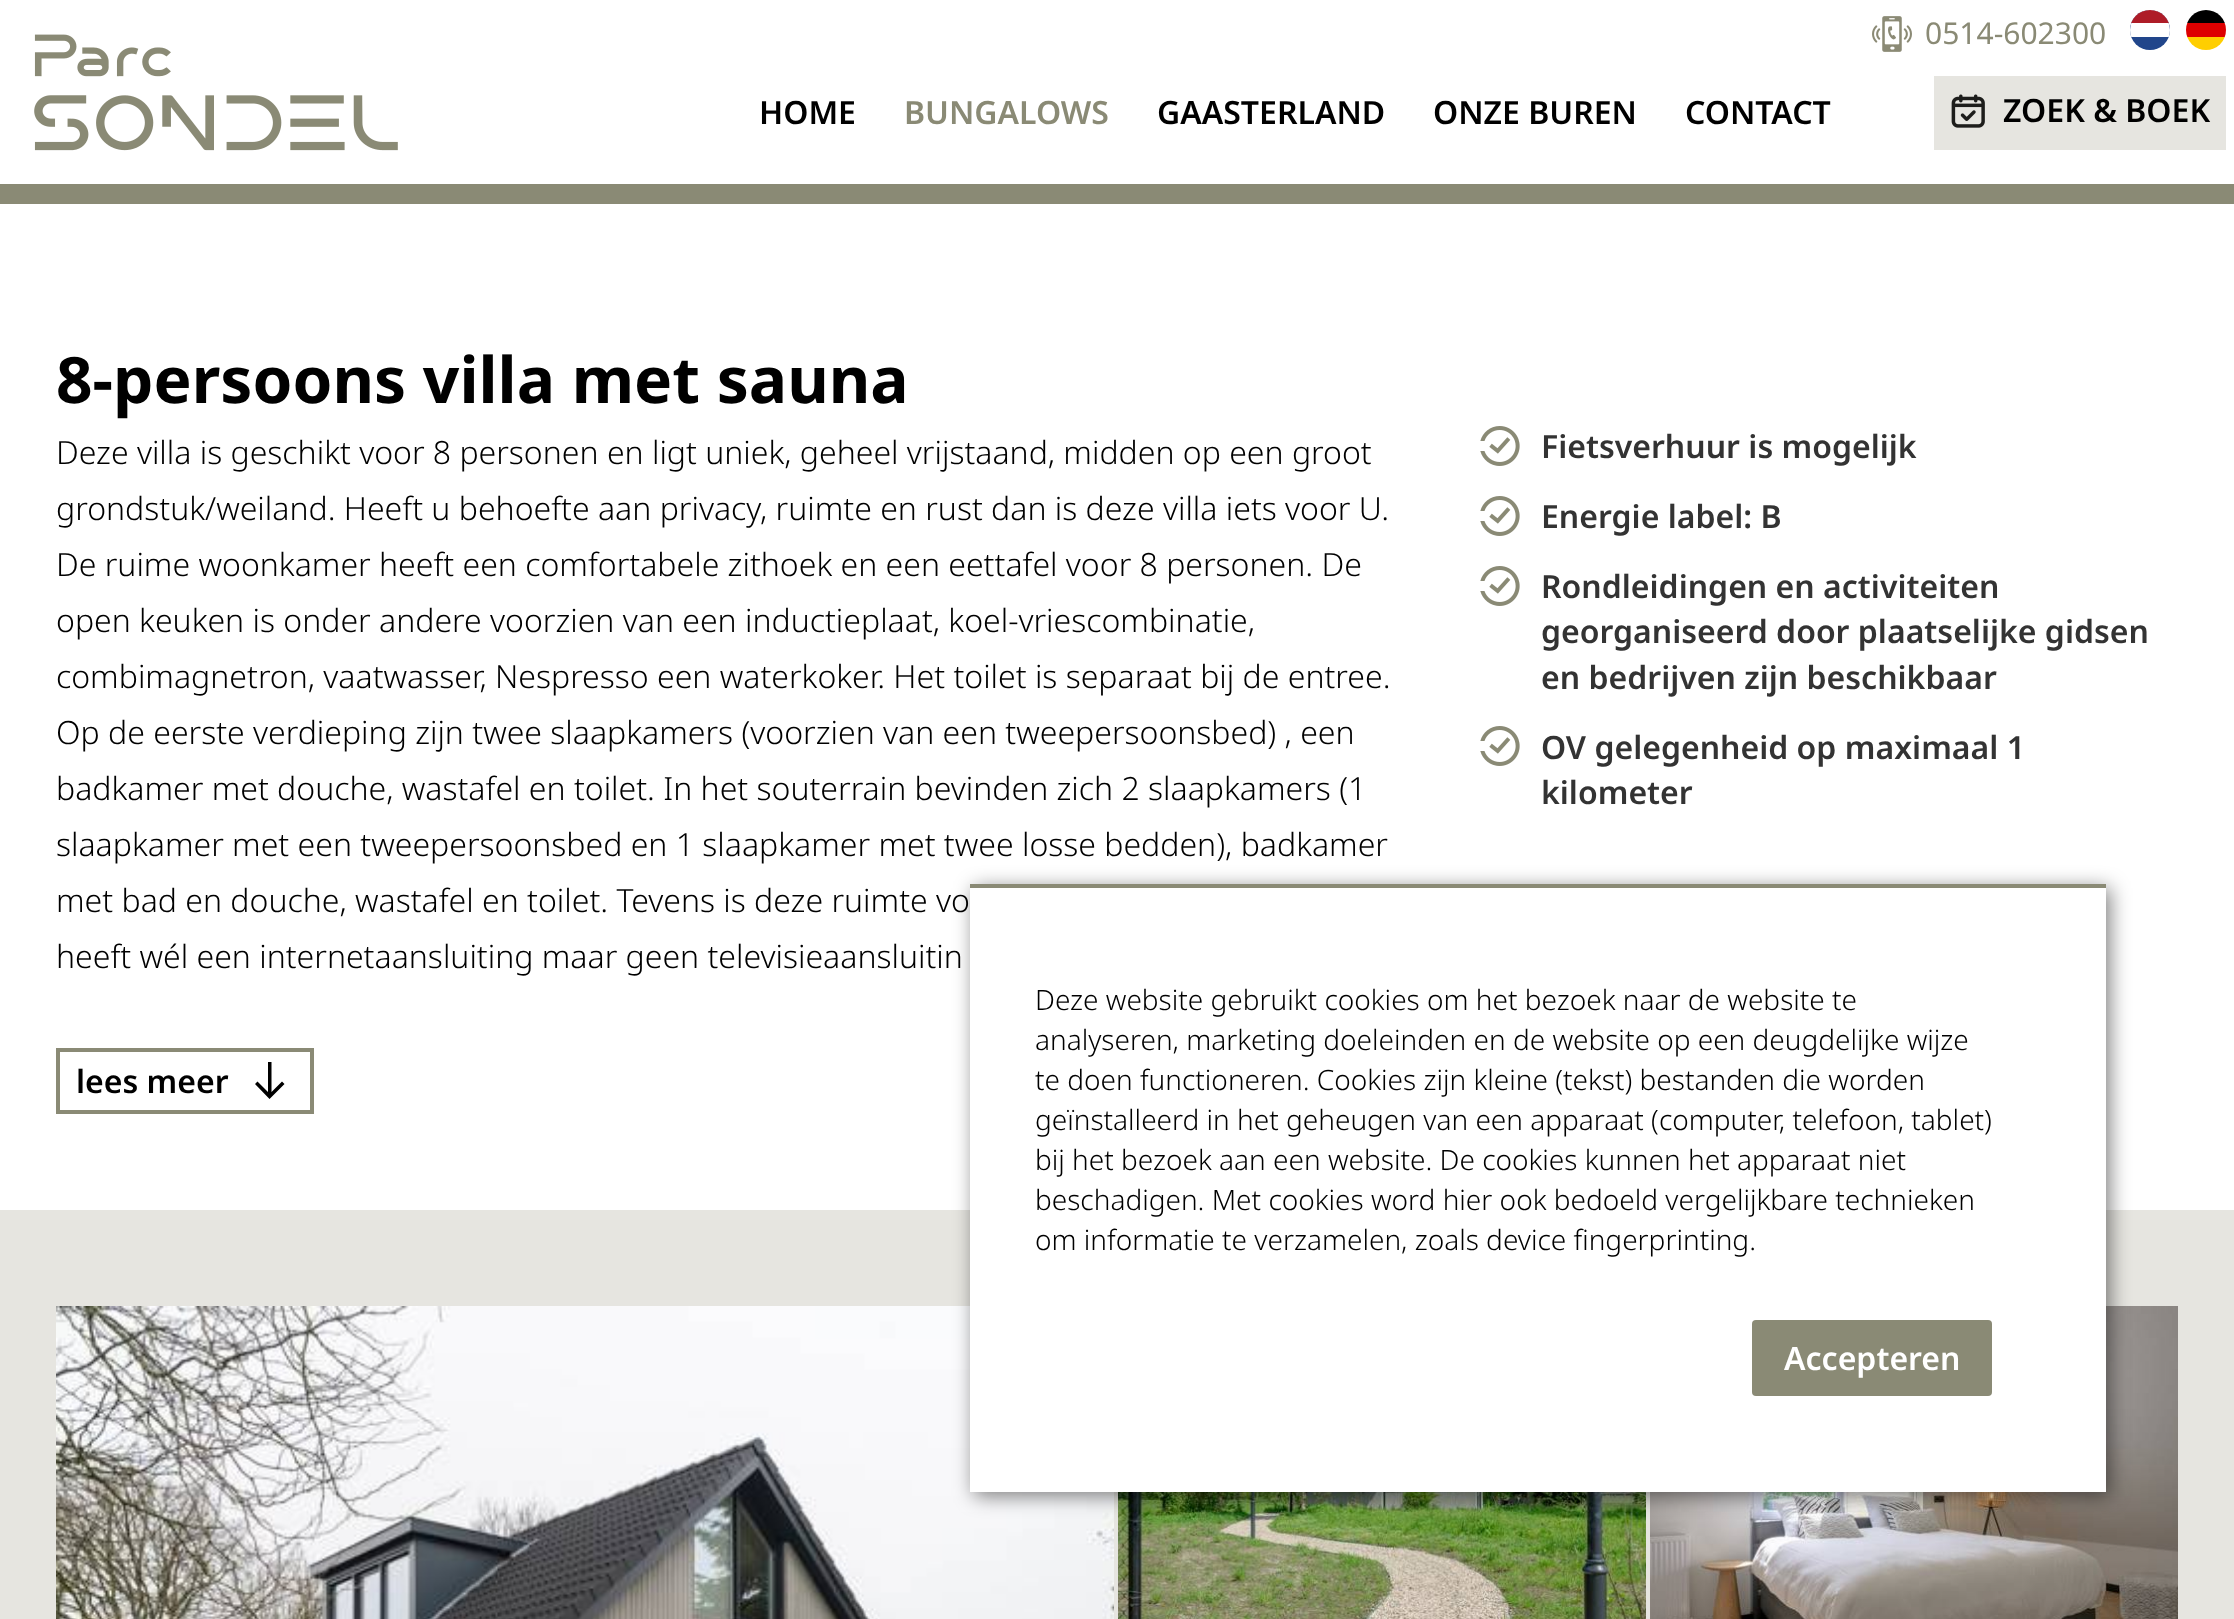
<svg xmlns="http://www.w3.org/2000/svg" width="2234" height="1619">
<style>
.a{font:30px Noto Sans;fill:#8a8a75}
.b{font:600 32px Noto Sans;fill:#000}
.c{font:600 32px Noto Sans;fill:#8a8a75}
.d{font:bold 64px Noto Sans;fill:#000}
.e{font:300 32px Noto Sans;fill:#000}
.f{font:600 32px Noto Sans;fill:#333}
.g{font:300 28px Noto Sans;fill:#000}
.h{font:600 32px Noto Sans;fill:#fff}
</style>
<defs>
<clipPath id="clip1"><rect x="2130" y="10" width="40" height="40" rx="20"/></clipPath>
<clipPath id="clip2"><rect x="2186" y="10" width="40" height="40" rx="20"/></clipPath>
</defs>
<rect width="100%" height="100%" fill="#fff"/>
<image href="1.png" x="34" y="34" width="364" height="117"/>
<image href="2.png" x="1872" y="16" width="40" height="36"/>
<circle fill="#21468b" cx="2150" cy="30" r="20"/>
<g clip-path="url(#clip1)">
<path fill="#fff" d="M2150 10c11 0 20 9 20 20v7h-40v-7c0-11 9-20 20-20z"/>
<path fill="#ae1c28" d="M2131 10h38v13H2131z"/>
</g>
<g clip-path="url(#clip2)">
<path fill="#ffce00" d="M2187 37h38v13H2187z"/>
<path fill="#000" d="M2187 10h38v13H2187z"/>
<path fill="#d00" d="M2186 23h40v14H2186z"/>
</g>
<path fill="#e6e5e0" d="M1934 76h292v74H1934z"/>
<image href="3.png" x="1951" y="94" width="34" height="34"/>
<path fill="#8a8a75" d="M0 184h2234v20H0z"/>
<path fill="none" stroke="#8a8a75" stroke-width="4" d="M58 1050h254v62H58z"/>
<path fill="#000" d="M284.5 1084l-2.5-2.5l-10.5 10.5v-30h-3.5v30l-10.5-10.5l-2.5 2.5l14.5 15z"/>
<image href="4.png" x="1480" y="426" width="40" height="40"/>
<image href="4.png" x="1480" y="496" width="40" height="40"/>
<image href="4.png" x="1480" y="566" width="40" height="40"/>
<image href="4.png" x="1480" y="726" width="40" height="40"/>
<path fill="#e6e5e0" d="M0 1210h2234v409H0z"/>
<image href="5.png" x="56" y="1306" width="1058" height="313"/>
<image href="6.png" x="1118" y="1492" width="528" height="127"/>
<image href="7.png" x="1650" y="1306" width="528" height="313"/>
<path fill="#00000080" filter="blur(10px)" d="M974 888h1136v608H974z"/>
<path fill="#fff" d="M970 888h1136v604H970z"/>
<path fill="#8a8a75" d="M970 884h1136v4H970z"/>
<rect fill="#8a8a75" x="1752" y="1320" width="240" height="76" rx="4"/>
<text class="a" x="1925" y="44">0514-602300</text>
<text class="b" x="759" y="124">HOME</text>
<text class="c" x="904" y="124">BUNGALOWS</text>
<text class="b" x="1157" y="124">GAASTERLAND</text>
<text class="b" x="1433" y="124">ONZE BUREN</text>
<text class="b" x="1685" y="124">CONTACT</text>
<text class="b" x="2003" y="122">ZOEK &amp; BOEK</text>
<text class="d" x="56" y="403">8-persoons villa met sauna</text>
<text class="e" x="56" y="464">Deze villa is geschikt voor 8 personen en ligt uniek, geheel vrijstaand, midden op een groot</text>
<text class="e" x="56" y="520">grondstuk/weiland. Heeft u behoefte aan privacy, ruimte en rust dan is deze villa iets voor U.</text>
<text class="e" x="56" y="576">De ruime woonkamer heeft een comfortabele zithoek en een eettafel voor 8 personen. De</text>
<text class="e" x="56" y="632">open keuken is onder andere voorzien van een inductieplaat, koel-vriescombinatie,</text>
<text class="e" x="56" y="688">combimagnetron, vaatwasser, Nespresso een waterkoker. Het toilet is separaat bij de entree.</text>
<text class="e" x="56" y="744">Op de eerste verdieping zijn twee slaapkamers (voorzien van een tweepersoonsbed) , een</text>
<text class="e" x="56" y="800">badkamer met douche, wastafel en toilet. In het souterrain bevinden zich 2 slaapkamers (1</text>
<text class="e" x="56" y="856">slaapkamer met een tweepersoonsbed en 1 slaapkamer met twee losse bedden), badkamer</text>
<text class="e" x="56" y="912">met bad en douche, wastafel en toilet. Tevens is deze ruimte vo</text>
<text class="e" x="56" y="968">heeft wél een internetaansluiting maar geen televisieaansluitin</text>
<text class="b" x="76" y="1093">lees meer</text>
<text class="f" x="1541" y="458">Fietsverhuur is mogelijk</text>
<text class="f" x="1541" y="528">Energie label: B</text>
<text class="f" x="1541" y="598">Rondleidingen en activiteiten</text>
<text class="f" x="1541" y="643">georganiseerd door plaatselijke gidsen</text>
<text class="f" x="1541" y="689">en bedrijven zijn beschikbaar</text>
<text class="f" x="1541" y="759">OV gelegenheid op maximaal 1</text>
<text class="f" x="1541" y="804">kilometer</text>
<text class="g" x="1035" y="1010">Deze website gebruikt cookies om het bezoek naar de website te</text>
<text class="g" x="1035" y="1050">analyseren, marketing doeleinden en de website op een deugdelijke wijze</text>
<text class="g" x="1035" y="1090">te doen functioneren. Cookies zijn kleine (tekst) bestanden die worden</text>
<text class="g" x="1035" y="1130">geïnstalleerd in het geheugen van een apparaat (computer, telefoon, tablet)</text>
<text class="g" x="1035" y="1170">bij het bezoek aan een website. De cookies kunnen het apparaat niet</text>
<text class="g" x="1035" y="1210">beschadigen. Met cookies word hier ook bedoeld vergelijkbare technieken</text>
<text class="g" x="1035" y="1250">om informatie te verzamelen, zoals device fingerprinting.</text>
<text class="h" x="1784" y="1370">Accepteren</text>
</svg>
